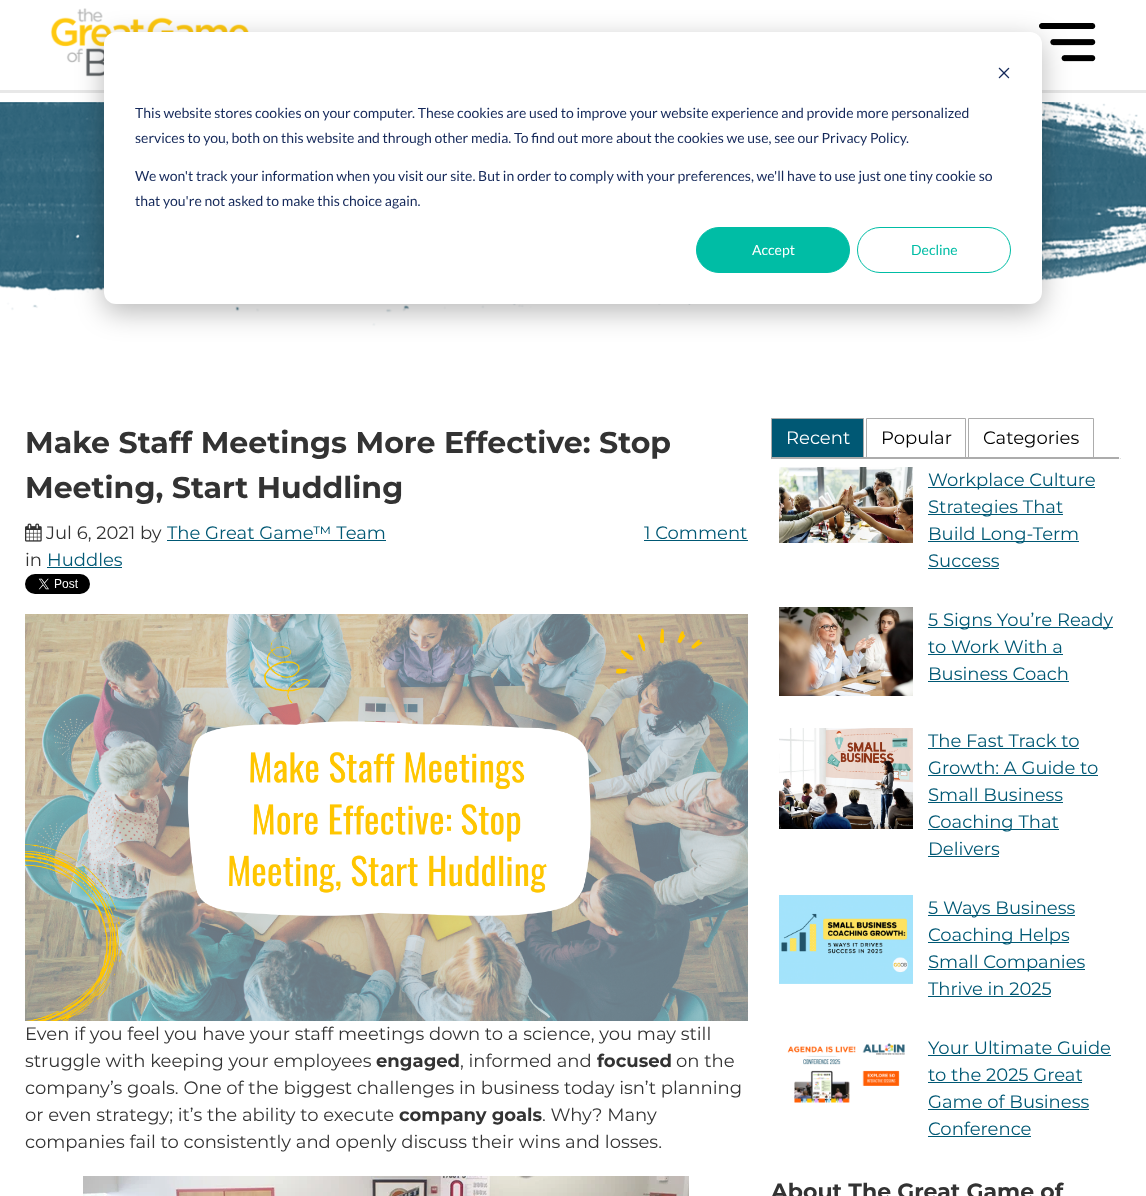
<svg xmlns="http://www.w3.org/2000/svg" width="1146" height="1196">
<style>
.a{font:14px Lato;fill:#15295a}
.b{font:14px Lato;fill:#fff}
.c{font:14px Lato;fill:#00bda5}
.d{font:bold 30px Montserrat;fill:#333}
.e{font:18px Montserrat;fill:#333}
.f{font:18px Montserrat;fill:#005874}
.g{font:bold 18px Montserrat;fill:#333}
.h{font:18px Montserrat;fill:#fff}
.i{font:18px Montserrat;fill:#000}
.j{font:bold 22px Montserrat;fill:#333}
</style>
<defs>
<clipPath id="clip1"><path d="M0 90h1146v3H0z"/></clipPath>
</defs>
<rect width="100%" height="100%" fill="#fff"/>
<g clip-path="url(#clip1)">
<path fill="#00000017" filter="blur(0.5px)" d="M-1 -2h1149v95H-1z"/>
</g>
<image href="1.png" x="50" y="8" width="199" height="69"/>
<image href="2.png" x="1039" y="23" width="57" height="39"/>
<image href="4.png" x="0" y="102" width="1146" height="224"/>
<rect fill="#00000047" filter="blur(14px)" x="104" y="40" width="938" height="272" rx="12"/>
<rect fill="#fff" x="104" y="32" width="938" height="272" rx="12"/>
<image href="3.png" x="998" y="67" width="12" height="12"/>
<rect fill="#00bda5" stroke="#00bda5" x="696.5" y="227.5" width="153" height="45" rx="22.5"/>
<rect fill="none" stroke="#00bda5" x="857.5" y="227.5" width="153" height="45" rx="22.5"/>
<image href="5.png" x="25" y="523" width="17" height="19"/>
<path fill="#005874" d="M167 540h219v1H167z"/>
<path fill="#005874" d="M644 540h104v1H644z"/>
<path fill="#005874" d="M47 567h75v1H47z"/>
<image href="6.png" x="25" y="574" width="65" height="20"/>
<image href="7.png" x="25" y="614" width="723" height="407"/>
<image href="8.png" x="83" y="1176" width="606" height="20"/>
<path fill="#ddd" d="M1119 458h2v1H1119z"/>
<path fill="#fff" d="M771 457h346c2 0 4 2 4 4v10c0 2-2 4-4 4h-342c-2 0-4-2-4-4z"/>
<path fill="#acacac" d="M771 457h348v2H771z"/>
<path fill="#005874" stroke="#acacac" d="M771.5 418.5h92v39H771.5z"/>
<path fill="none" stroke="#acacac" d="M866.5 418.5h99v39H866.5z"/>
<path fill="none" stroke="#acacac" d="M968.5 418.5h125v39H968.5z"/>
<image href="9.png" x="779" y="467" width="134" height="76"/>
<path fill="#005874" d="M928 487h167v1H928z"/>
<path fill="#005874" d="M928 514h135v1H928z"/>
<path fill="#005874" d="M928 541h151v1H928z"/>
<path fill="#005874" d="M928 568h71v1H928z"/>
<image href="10.png" x="779" y="607" width="134" height="89"/>
<path fill="#005874" d="M928 627h185v1H928z"/>
<path fill="#005874" d="M928 654h135v1H928z"/>
<path fill="#005874" d="M928 681h141v1H928z"/>
<image href="11.png" x="779" y="728" width="134" height="101"/>
<path fill="#005874" d="M928 748h151v1H928z"/>
<path fill="#005874" d="M928 775h170v1H928z"/>
<path fill="#005874" d="M928 802h135v1H928z"/>
<path fill="#005874" d="M928 829h131v1H928z"/>
<path fill="#005874" d="M928 856h71v1H928z"/>
<image href="12.png" x="779" y="895" width="134" height="89"/>
<path fill="#005874" d="M928 915h147v1H928z"/>
<path fill="#005874" d="M928 942h141v1H928z"/>
<path fill="#005874" d="M928 969h157v1H928z"/>
<path fill="#005874" d="M928 996h123v1H928z"/>
<image href="13.png" x="787" y="1043" width="118" height="60"/>
<path fill="#005874" d="M928 1055h183v1H928z"/>
<path fill="#005874" d="M928 1082h154v1H928z"/>
<path fill="#005874" d="M928 1109h161v1H928z"/>
<path fill="#005874" d="M928 1136h103v1H928z"/>
<text class="a" x="135" y="118">This website stores cookies on your computer. These cookies are used to improve your website experience and provide more personalized</text>
<text class="a" x="135" y="143">services to you, both on this website and through other media. To find out more about the cookies we use, see our Privacy Policy.</text>
<text class="a" x="135" y="181">We won't track your information when you visit our site. But in order to comply with your preferences, we'll have to use just one tiny cookie so</text>
<text class="a" x="135" y="206">that you're not asked to make this choice again.</text>
<text class="b" x="752" y="255">Accept</text>
<text class="c" x="911" y="255">Decline</text>
<text class="d" x="25" y="453">Make Staff Meetings More Effective: Stop</text>
<text class="d" x="25" y="498">Meeting, Start Huddling</text>
<text class="e" x="46" y="539">Jul 6, 2021 by</text>
<text class="f" x="167" y="539">The Great Game™ Team</text>
<text class="f" x="644" y="539">1 Comment</text>
<text class="e" x="25" y="566">in</text>
<text class="f" x="47" y="566">Huddles</text>
<text class="e" x="25" y="1040">Even if you feel you have your staff meetings down to a science, you may still</text>
<text class="e" x="25" y="1067">struggle with keeping your employees</text>
<text class="g" x="376" y="1067">engaged</text>
<text class="e" x="460" y="1067">, informed and</text>
<text class="g" x="597" y="1067">focused</text>
<text class="e" x="676" y="1067">on the</text>
<text class="e" x="25" y="1094">company’s goals. One of the biggest challenges in business today isn’t planning</text>
<text class="e" x="25" y="1121">or even strategy; it’s the ability to execute</text>
<text class="g" x="399" y="1121">company goals</text>
<text class="e" x="542" y="1121">. Why? Many</text>
<text class="e" x="25" y="1148">companies fail to consistently and openly discuss their wins and losses.</text>
<text class="h" x="786" y="444">Recent</text>
<text class="i" x="881" y="444">Popular</text>
<text class="i" x="983" y="444">Categories</text>
<text class="f" x="928" y="486">Workplace Culture</text>
<text class="f" x="928" y="513">Strategies That</text>
<text class="f" x="928" y="540">Build Long-Term</text>
<text class="f" x="928" y="567">Success</text>
<text class="f" x="928" y="626">5 Signs You’re Ready</text>
<text class="f" x="928" y="653">to Work With a</text>
<text class="f" x="928" y="680">Business Coach</text>
<text class="f" x="928" y="747">The Fast Track to</text>
<text class="f" x="928" y="774">Growth: A Guide to</text>
<text class="f" x="928" y="801">Small Business</text>
<text class="f" x="928" y="828">Coaching That</text>
<text class="f" x="928" y="855">Delivers</text>
<text class="f" x="928" y="914">5 Ways Business</text>
<text class="f" x="928" y="941">Coaching Helps</text>
<text class="f" x="928" y="968">Small Companies</text>
<text class="f" x="928" y="995">Thrive in 2025</text>
<text class="f" x="928" y="1054">Your Ultimate Guide</text>
<text class="f" x="928" y="1081">to the 2025 Great</text>
<text class="f" x="928" y="1108">Game of Business</text>
<text class="f" x="928" y="1135">Conference</text>
<text class="j" x="771" y="1199">About The Great Game of</text>
</svg>
